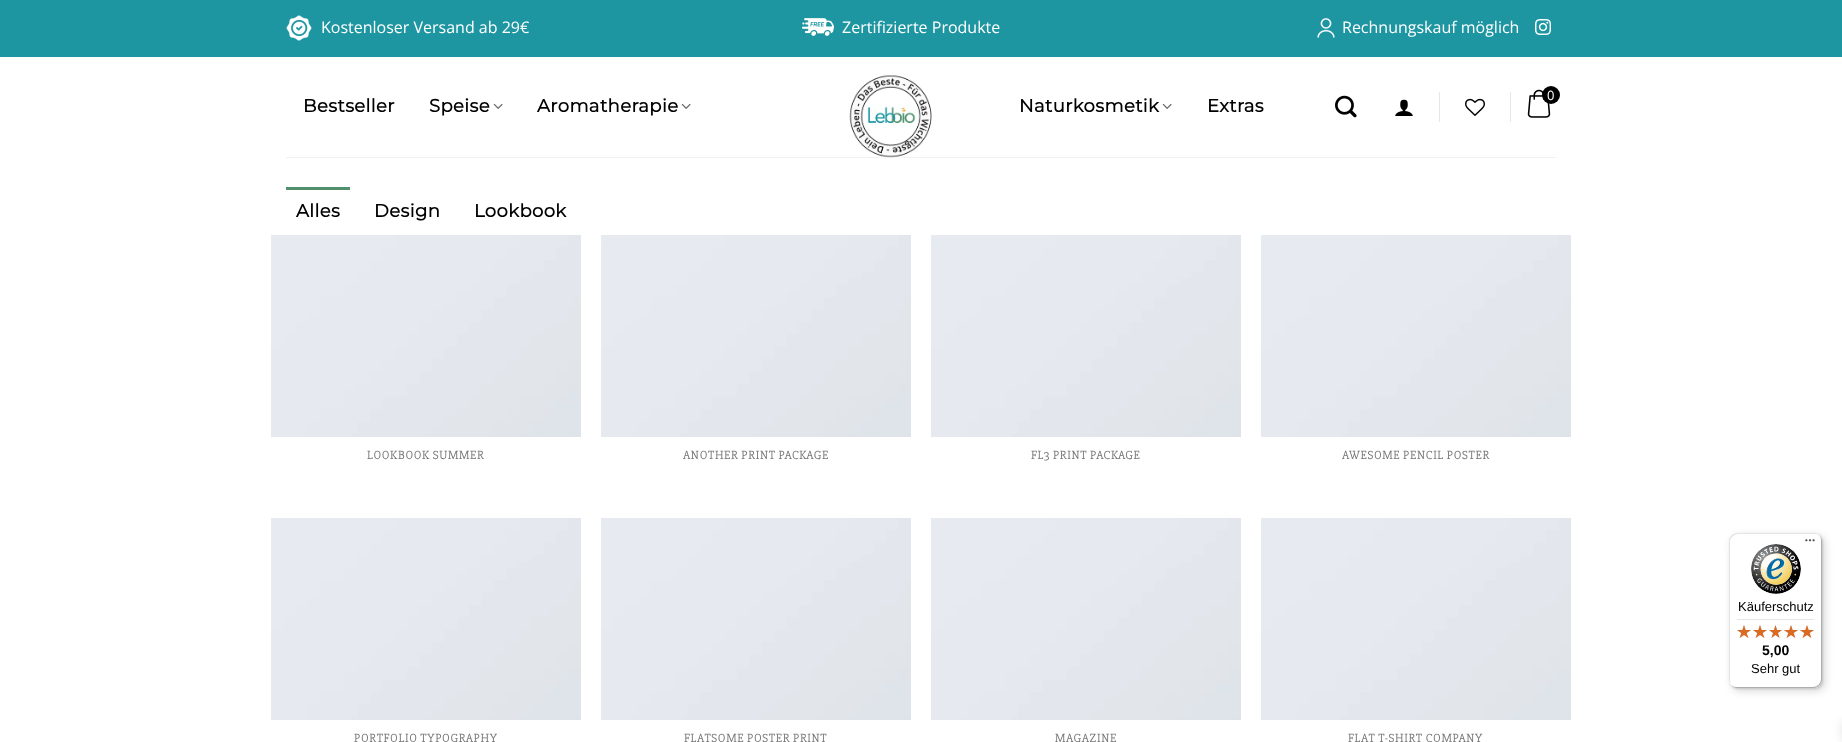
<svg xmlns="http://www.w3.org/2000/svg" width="1842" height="742">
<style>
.a{font:16px Open Sans;fill:#fff}
.b{font:13px Open Sans;fill:#fff}
.c{font:bold 18px Montserrat;letter-spacing:0.4px;fill:#000}
.d{font:12.25px 'Slabo 27px';letter-spacing:0.6px;fill:#777}
.e{font:13px Liberation Sans;fill:#000}
.f{font:bold 14px Liberation Sans;fill:#000}
</style>
<rect width="100%" height="100%" fill="#fff"/>
<path fill="#1d96a2" d="M0 0h1842v57H0z"/>
<image href="1.png" x="286" y="15" width="26" height="26"/>
<image href="2.png" x="802" y="18" width="32" height="18"/>
<image href="3.png" x="1317" y="18" width="18" height="20"/>
<image href="4.png" x="1535" y="19" width="16" height="16"/>
<path fill="#f1f1f1" d="M286 157h1270v1H286z"/>
<image href="5.png" x="849" y="75" width="83" height="83"/>
<image href="6.png" x="1395" y="99" width="18" height="17"/>
<path fill="#e6e6e6" d="M1439 92h1v30H1439z"/>
<image href="7.png" x="1465" y="98" width="20" height="18"/>
<path fill="#e6e6e6" d="M1510 92h1v30H1510z"/>
<image href="8.png" x="1527" y="89" width="24" height="29"/>
<circle fill="#000" cx="1551" cy="95" r="9"/>
<image href="9.png" x="493" y="103" width="10" height="6"/>
<image href="9.png" x="681" y="103" width="10" height="6"/>
<image href="9.png" x="1162" y="103" width="10" height="6"/>
<image href="10.png" x="1335" y="95" width="22" height="23"/>
<path fill="#528f6d" d="M286 187h64v3H286z"/>
<image href="11.png" x="271" y="235" width="310" height="202"/>
<image href="11.png" x="601" y="235" width="310" height="202"/>
<image href="11.png" x="931" y="235" width="310" height="202"/>
<image href="11.png" x="1261" y="235" width="310" height="202"/>
<image href="11.png" x="271" y="518" width="310" height="202"/>
<image href="11.png" x="601" y="518" width="310" height="202"/>
<image href="11.png" x="931" y="518" width="310" height="202"/>
<image href="11.png" x="1261" y="518" width="310" height="202"/>
<rect fill="#00000026" filter="blur(4px)" x="1732" y="536" width="93" height="155" rx="8"/>
<rect fill="#00000026" filter="blur(1px)" x="1730" y="534" width="93" height="155" rx="8"/>
<rect fill="#fff" x="1729" y="533" width="93" height="155" rx="8"/>
<path fill="#e5e5e5" d="M1738 534h77c2 0 4 1 6 3c-2-2-4-4-7-4h-77c-4 0-8 4-8 8v139c0 3 2 5 4 7c-2-2-3-4-3-6v-139c0-4 4-8 8-8z"/>
<path fill="#ccc" d="M1730 684c2 2 4 4 7 4h77c4 0 8-4 8-8v-139c0-3-2-5-4-7c2 2 3 4 3 6v139c0 4-4 8-8 8h-77c-2 0-4-1-6-3z"/>
<path fill="#32323233" d="M1731 685c1 2 4 3 6 3h77c4 0 8-4 8-8v-139c0-2-1-5-3-6c1 1 2 3 2 5v139c0 5-3 8-8 8h-77c-2 0-4-1-5-2z"/>
<image href="12.png" x="1805" y="539" width="10" height="3"/>
<path fill="#ffffff4d" d="M1814 688c4.5 0 8-3.5 8-8c0 4-4 8-8 8z"/>
<image href="13.png" x="1751" y="544" width="50" height="50"/>
<path fill="#e5e5e5" d="M1737 619h77v1H1737z"/>
<image href="14.png" x="1737" y="625" width="14" height="13"/>
<image href="14.png" x="1753" y="625" width="14" height="13"/>
<image href="15.png" x="1769" y="625" width="13" height="13"/>
<image href="14.png" x="1784" y="625" width="14" height="13"/>
<image href="14.png" x="1800" y="625" width="14" height="13"/>
<image href="16.png" x="1737" y="625" width="14" height="13"/>
<image href="16.png" x="1753" y="625" width="14" height="13"/>
<image href="17.png" x="1769" y="625" width="13" height="13"/>
<image href="16.png" x="1784" y="625" width="14" height="13"/>
<image href="16.png" x="1800" y="625" width="14" height="13"/>
<path fill="#0000001a" filter="blur(5px)" d="M1842 721h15v20H1842z"/>
<text class="a" x="321" y="33">Kostenloser Versand ab 29€</text>
<text class="a" x="842" y="33">Zertifizierte Produkte</text>
<text class="a" x="1342" y="33">Rechnungskauf möglich</text>
<text class="b" x="1547" y="100">0</text>
<text class="c" x="303" y="112">Bestseller</text>
<text class="c" x="429" y="112">Speise</text>
<text class="c" x="537" y="112">Aromatherapie</text>
<text class="c" x="1019" y="112">Naturkosmetik</text>
<text class="c" x="1207" y="112">Extras</text>
<text class="c" x="296" y="217">Alles</text>
<text class="c" x="374" y="217">Design</text>
<text class="c" x="474" y="217">Lookbook</text>
<text class="d" x="367" y="459">LOOKBOOK SUMMER</text>
<text class="d" x="683" y="459">ANOTHER PRINT PACKAGE</text>
<text class="d" x="1031" y="459">FL3 PRINT PACKAGE</text>
<text class="d" x="1342" y="459">AWESOME PENCIL POSTER</text>
<text class="d" x="354" y="742">PORTFOLIO TYPOGRAPHY</text>
<text class="d" x="684" y="742">FLATSOME POSTER PRINT</text>
<text class="d" x="1055" y="742">MAGAZINE</text>
<text class="d" x="1348" y="742">FLAT T-SHIRT COMPANY</text>
<text class="e" x="1738" y="611">Käuferschutz</text>
<text class="f" x="1762" y="655">5,00</text>
<text class="e" x="1751" y="673">Sehr gut</text>
</svg>
